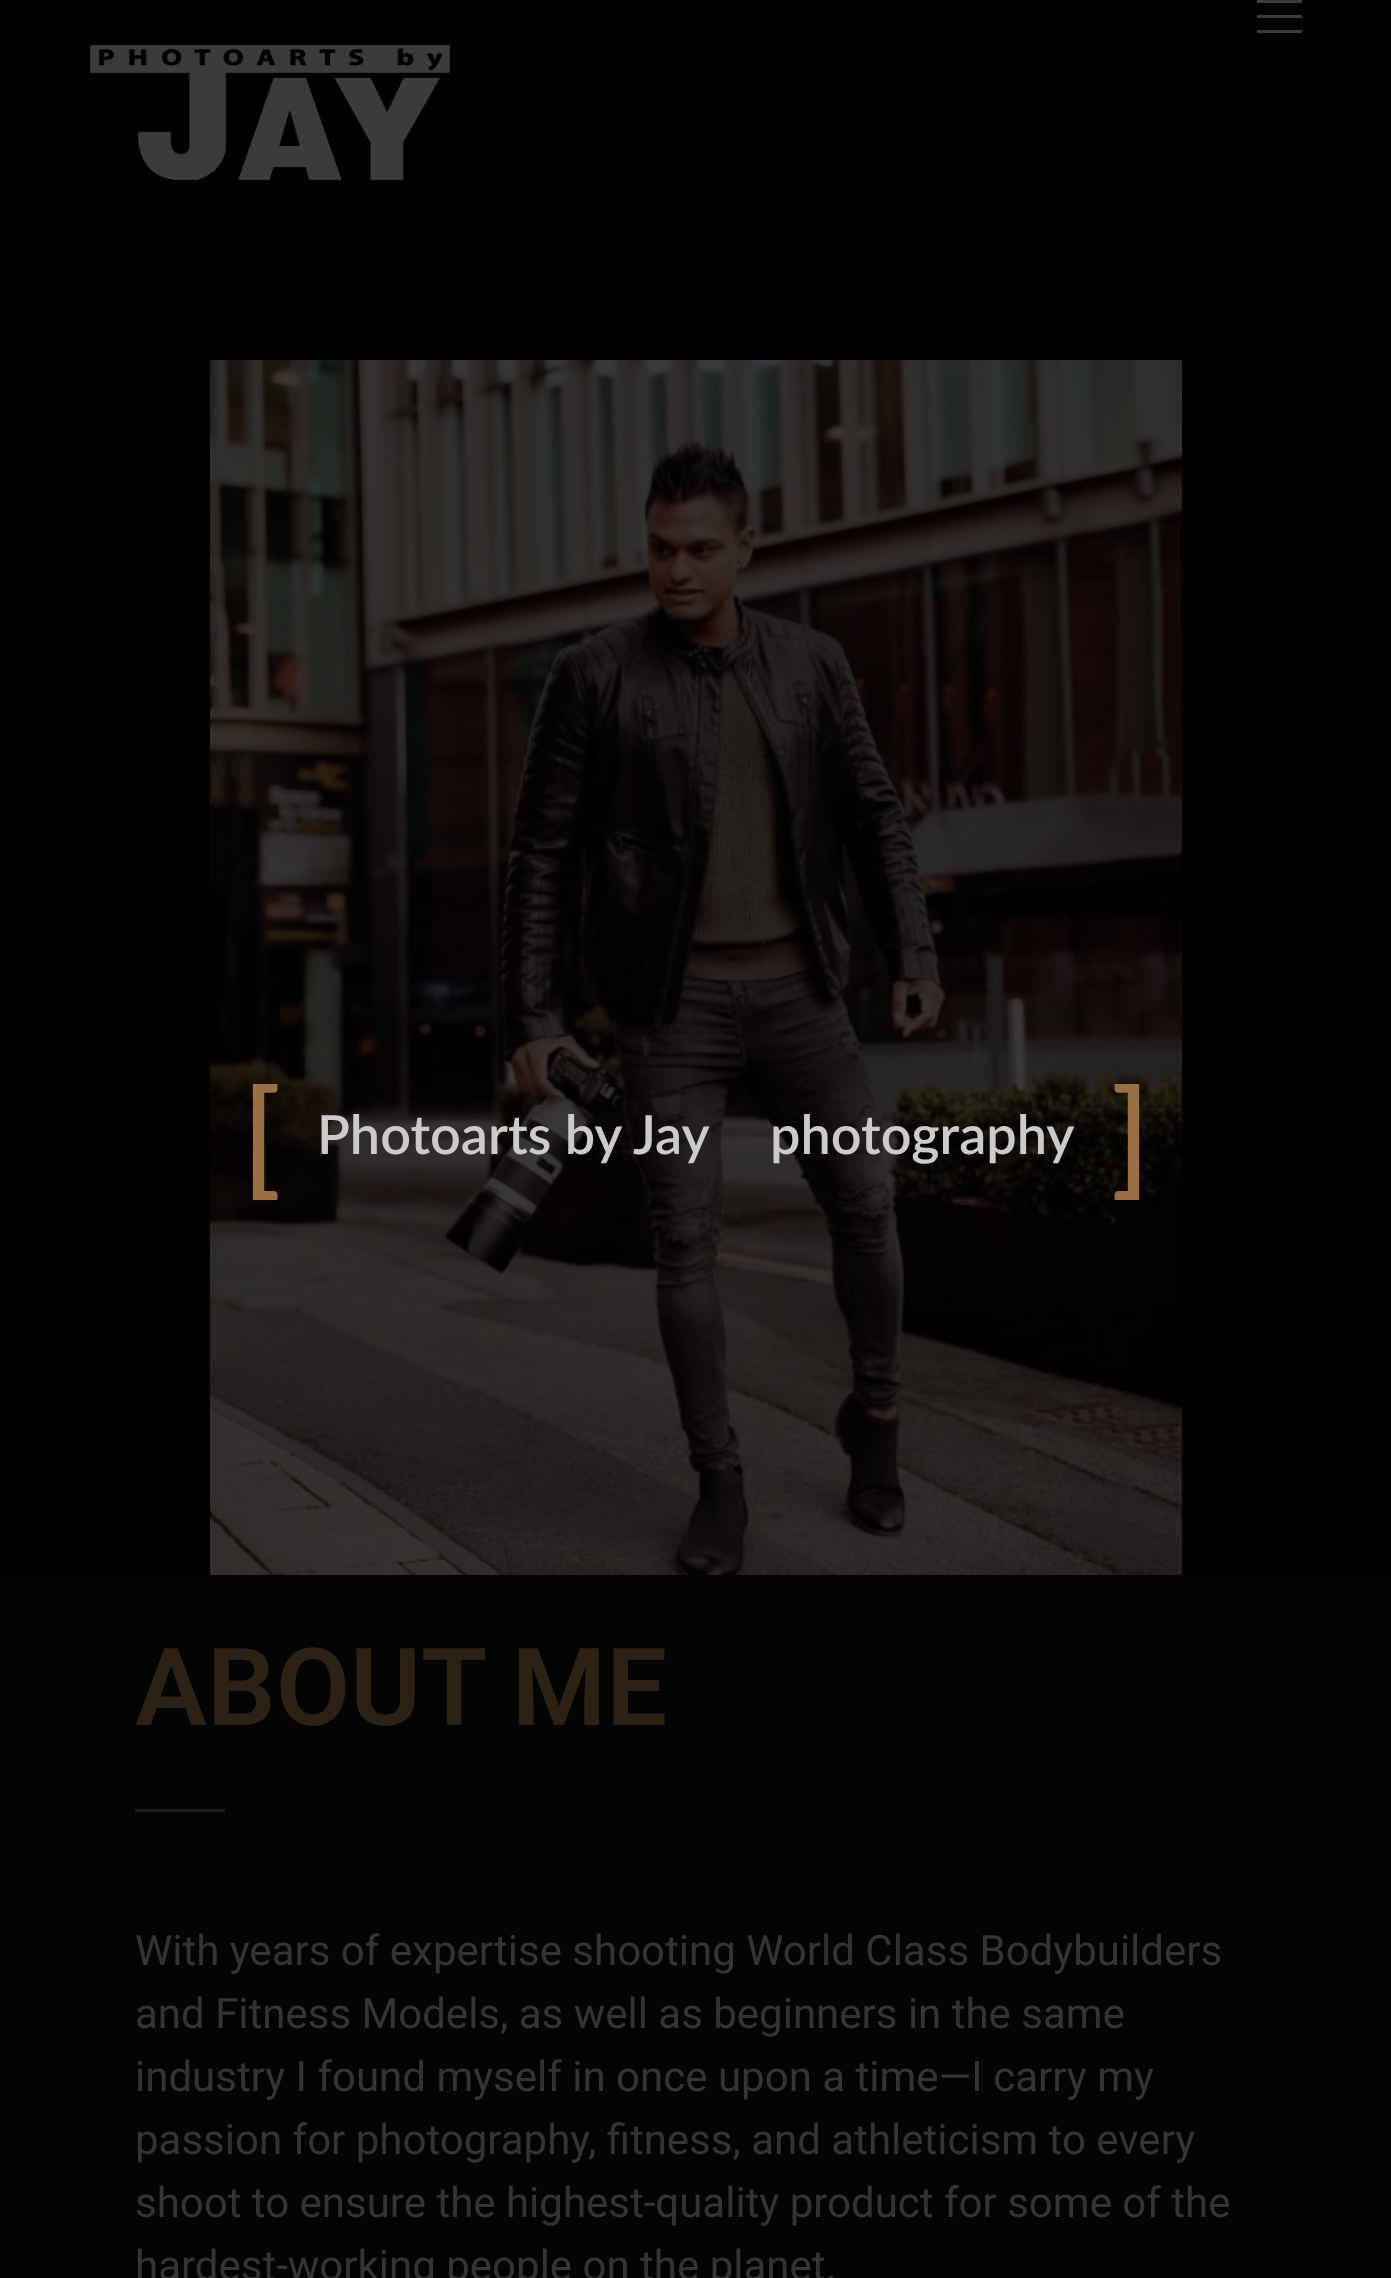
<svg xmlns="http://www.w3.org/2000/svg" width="1391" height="2278">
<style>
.a{font:600 126px Lato;fill:#996f43}
.b{font:600 54px Lato;fill:#cccbcb}
.c{font:600 108px Roboto;fill:#2d2114}
.d{font:42px Roboto;fill:#343434}
</style>
<rect width="100%" height="100%" fill="#000"/>
<path fill="#3b3b3b" d="M1257 0h45v3H1257z"/>
<path fill="#3b3b3b" d="M1257 15h45v3H1257z"/>
<path fill="#3b3b3b" d="M1257 30h45v3H1257z"/>
<image href="1.png" x="90" y="45" width="360" height="135"/>
<image href="2.png" x="210" y="360" width="972" height="1215"/>
<path fill="#040404" d="M0 1575h1391v703H0z"/>
<path fill="#1c1c1c" d="M135 1809h90v3H135z"/>
<text class="a" x="242" y="1181">[</text>
<text class="b" x="317" y="1154">Photoarts by Jay</text>
<text class="b" x="770" y="1154">photography</text>
<text class="a" x="1111" y="1181">]</text>
<text class="c" x="135" y="1725">ABOUT ME</text>
<text class="d" x="135" y="1965">With years of expertise shooting World Class Bodybuilders</text>
<text class="d" x="135" y="2028">and Fitness Models, as well as beginners in the same</text>
<text class="d" x="135" y="2091">industry I found myself in once upon a time—I carry my</text>
<text class="d" x="135" y="2154">passion for photography, fitness, and athleticism to every</text>
<text class="d" x="135" y="2217">shoot to ensure the highest-quality product for some of the</text>
<text class="d" x="135" y="2280">hardest-working people on the planet.</text>
</svg>
